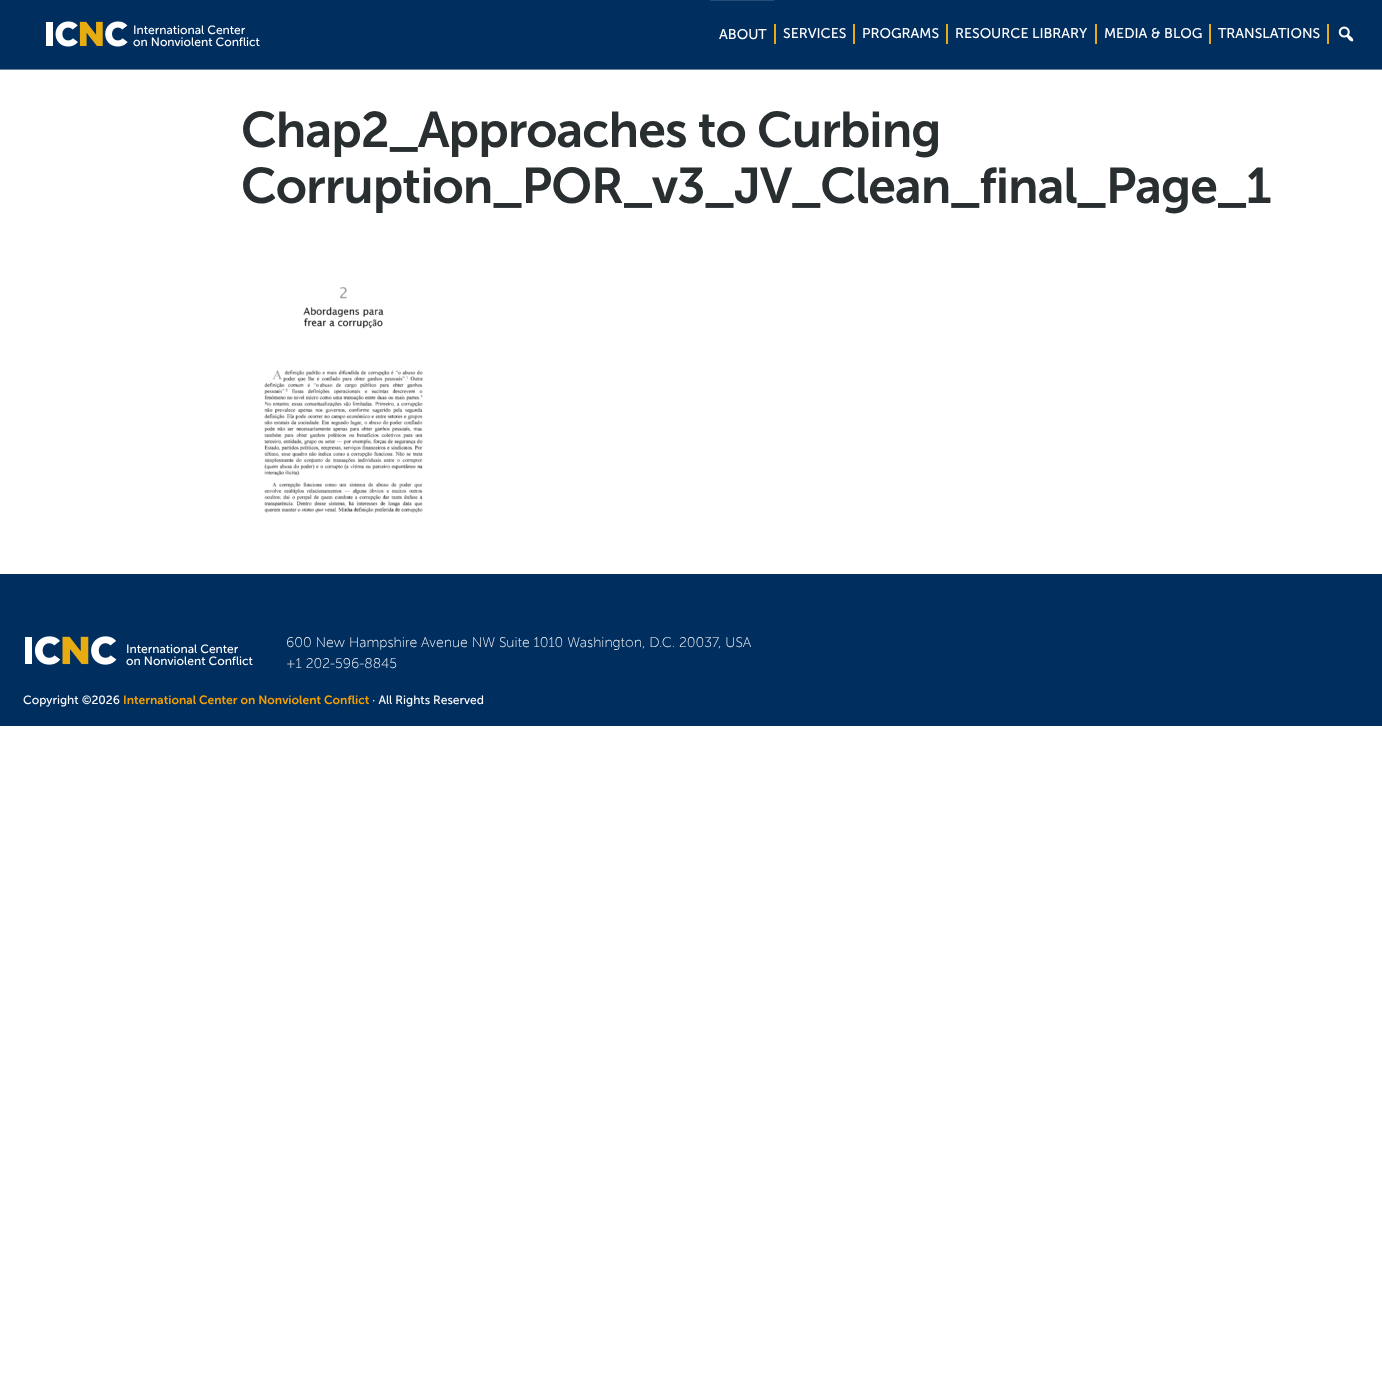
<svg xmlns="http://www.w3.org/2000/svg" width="1382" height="1379">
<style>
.a{font:12px Museo Sans;fill:#fff}
.b{font:14px Museo Sans;fill:#fff}
.c{font:600 50px 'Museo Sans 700';letter-spacing:-1px;fill:#292e31}
.d{font:300 14px 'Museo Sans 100';fill:#fff}
.e{font:600 12px 'Museo Sans 700';fill:#f3a000}
</style>
<rect width="100%" height="100%" fill="#fff"/>
<path fill="#002e5f" d="M0 0h1382v69H0z"/>
<path fill="#66829f" d="M0 69h1382v1H0z"/>
<image href="1.png" x="46" y="21" width="82" height="26"/>
<path fill="#264d77" d="M710 0h64v1H710z"/>
<path fill="#e7ac11" d="M774 24h2v20H774z"/>
<path fill="#e7ac11" d="M853 24h2v20H853z"/>
<path fill="#e7ac11" d="M946 24h2v20H946z"/>
<path fill="#e7ac11" d="M1095 24h2v20H1095z"/>
<path fill="#e7ac11" d="M1209 24h2v20H1209z"/>
<path fill="#e7ac11" d="M1327 24h2v20H1327z"/>
<image href="2.png" x="1338" y="26" width="16" height="16"/>
<image href="3.png" x="264" y="287" width="159" height="226"/>
<path fill="#002e5f" d="M0 574h1382v152H0z"/>
<image href="4.png" x="25" y="636" width="92" height="29"/>
<text class="a" x="133" y="34">International Center</text>
<text class="a" x="133" y="46">on Nonviolent Conflict</text>
<text class="b" x="719" y="39">ABOUT</text>
<text class="b" x="783" y="38">SERVICES</text>
<text class="b" x="862" y="38">PROGRAMS</text>
<text class="b" x="955" y="38">RESOURCE LIBRARY</text>
<text class="b" x="1104" y="38">MEDIA &amp; BLOG</text>
<text class="b" x="1218" y="38">TRANSLATIONS</text>
<text class="c" x="241" y="147">Chap2_Approaches to Curbing</text>
<text class="c" x="241" y="203">Corruption_POR_v3_JV_Clean_final_Page_1</text>
<text class="a" x="126" y="653">International Center</text>
<text class="a" x="126" y="665">on Nonviolent Conflict</text>
<text class="d" x="286" y="647">600 New Hampshire Avenue NW Suite 1010 Washington, D.C. 20037, USA</text>
<text class="d" x="286" y="668">+1 202-596-8845</text>
<text class="a" x="23" y="704">Copyright ©2026</text>
<text class="e" x="123" y="704">International Center on Nonviolent Conflict</text>
<text class="a" x="372" y="704">· All Rights Reserved</text>
</svg>
